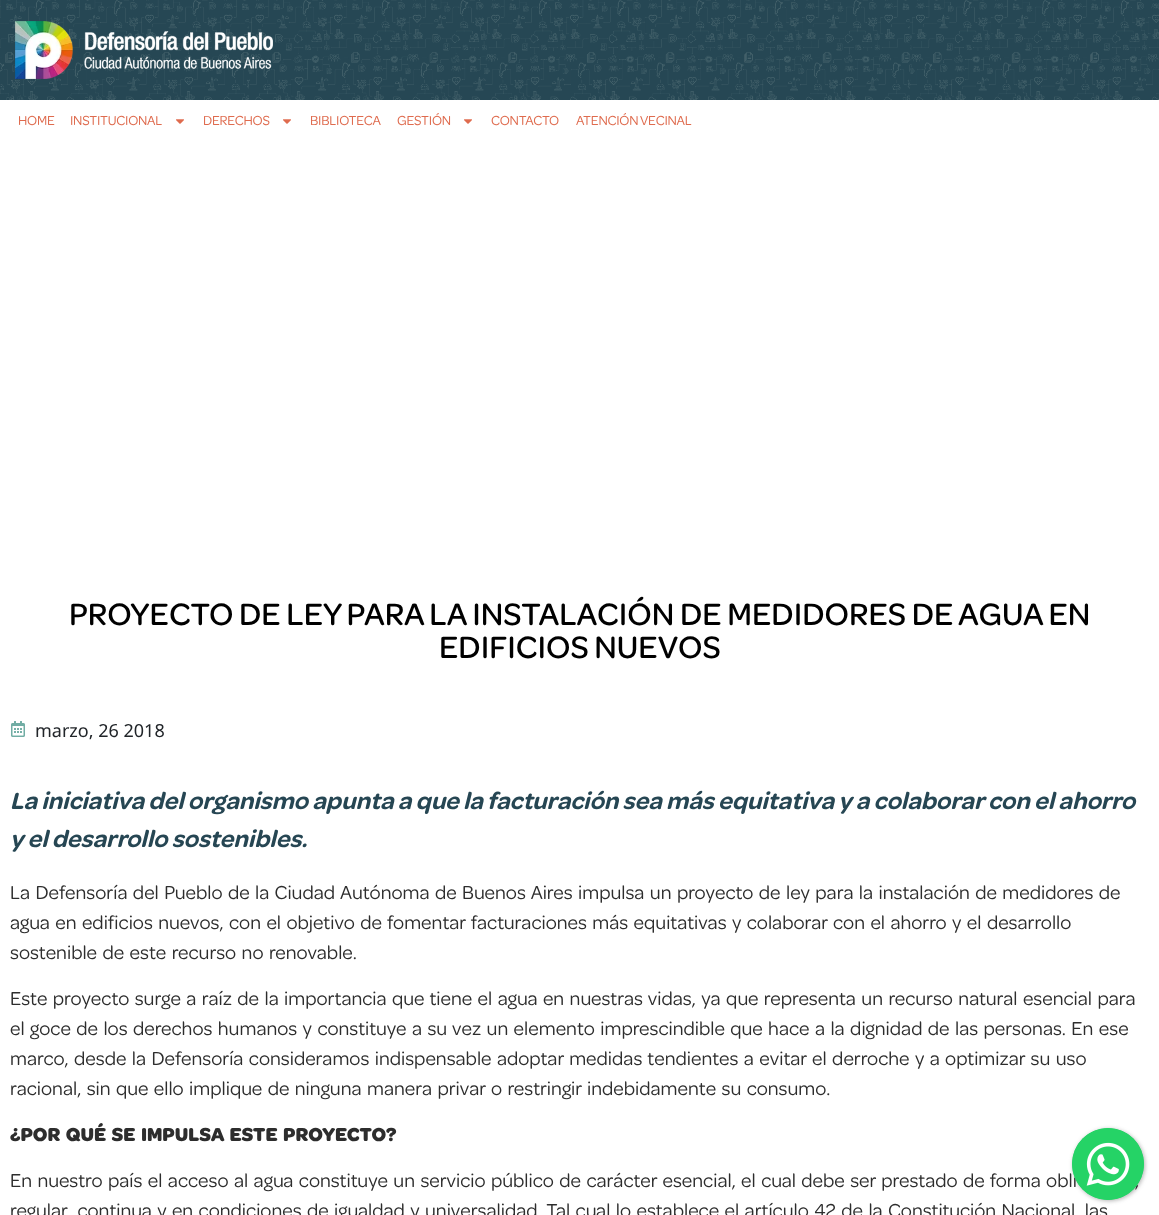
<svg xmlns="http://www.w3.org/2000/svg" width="1159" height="1215">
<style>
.a{font:14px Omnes;letter-spacing:-0.25px;fill:#df6b4e}
.b{font:500 33px Omnes;fill:#000}
.c{font:18px Noto Sans;fill:#212529}
.d{font:italic 600 25px Omnes;fill:#264653}
.e{font:20px Omnes;fill:#2d2d2d}
.f{font:bold 20px Omnes;fill:#2d2d2d}
</style>
<rect width="100%" height="100%" fill="#fff"/>
<path fill="#264754" d="M0 0h1159v100H0z"/>
<image href="1.png" x="0" y="0" width="1159" height="100"/>
<image href="2.png" x="15" y="21" width="258" height="58"/>
<image href="3.png" x="176" y="119" width="8" height="5"/>
<image href="3.png" x="283" y="119" width="8" height="5"/>
<image href="3.png" x="464" y="119" width="8" height="5"/>
<image href="4.png" x="11" y="721" width="14" height="16"/>
<rect fill="#3c3c3c66" filter="blur(2px)" x="1073" y="1129" width="72" height="72" rx="36"/>
<text class="a" x="18" y="125">HOME</text>
<text class="a" x="70" y="125">INSTITUCIONAL</text>
<text class="a" x="203" y="125">DERECHOS</text>
<text class="a" x="310" y="125">BIBLIOTECA</text>
<text class="a" x="397" y="125">GESTIÓN</text>
<text class="a" x="491" y="125">CONTACTO</text>
<text class="a" x="576" y="125">ATENCIÓN VECINAL</text>
<text class="b" x="69" y="625">PROYECTO DE LEY PARA LA INSTALACIÓN DE MEDIDORES DE AGUA EN</text>
<text class="b" x="439" y="658">EDIFICIOS NUEVOS</text>
<text class="c" x="35" y="737">marzo, 26 2018</text>
<text class="d" x="10" y="809">La iniciativa del organismo apunta a que la facturación sea más equitativa y a colaborar con el ahorro</text>
<text class="d" x="10" y="847">y el desarrollo sostenibles.</text>
<text class="e" x="10" y="899" word-spacing="2">La Defensoría del Pueblo de la Ciudad Autónoma de Buenos Aires impulsa un proyecto de ley para la instalación de medidores de</text>
<text class="e" x="10" y="929" word-spacing="2">agua en edificios nuevos, con el objetivo de fomentar facturaciones más equitativas y colaborar con el ahorro y el desarrollo</text>
<text class="e" x="10" y="959" word-spacing="2">sostenible de este recurso no renovable.</text>
<text class="e" x="10" y="1005" word-spacing="2">Este proyecto surge a raíz de la importancia que tiene el agua en nuestras vidas, ya que representa un recurso natural esencial para</text>
<text class="e" x="10" y="1035" word-spacing="2">el goce de los derechos humanos y constituye a su vez un elemento imprescindible que hace a la dignidad de las personas. En ese</text>
<text class="e" x="10" y="1065" word-spacing="2">marco, desde la Defensoría consideramos indispensable adoptar medidas tendientes a evitar el derroche y a optimizar su uso</text>
<text class="e" x="10" y="1095" word-spacing="2">racional, sin que ello implique de ninguna manera privar o restringir indebidamente su consumo.</text>
<text class="f" x="10" y="1141" word-spacing="2">¿POR QUÉ SE IMPULSA ESTE PROYECTO?</text>
<text class="e" x="10" y="1187" word-spacing="2">En nuestro país el acceso al agua constituye un servicio público de carácter esencial, el cual debe ser prestado de forma obli</text>
<text class="e" x="1135" y="1187" word-spacing="2">,</text>
<text class="e" x="10" y="1217" word-spacing="2">regular, continua y en condiciones de igualdad y universalidad. Tal cual lo establece el artículo 42 de la Constitución Nacional, las</text>
<circle fill="#25d366" cx="1108" cy="1164" r="36"/>
<image href="5.png" x="1072" y="1128" width="72" height="72"/>
</svg>
